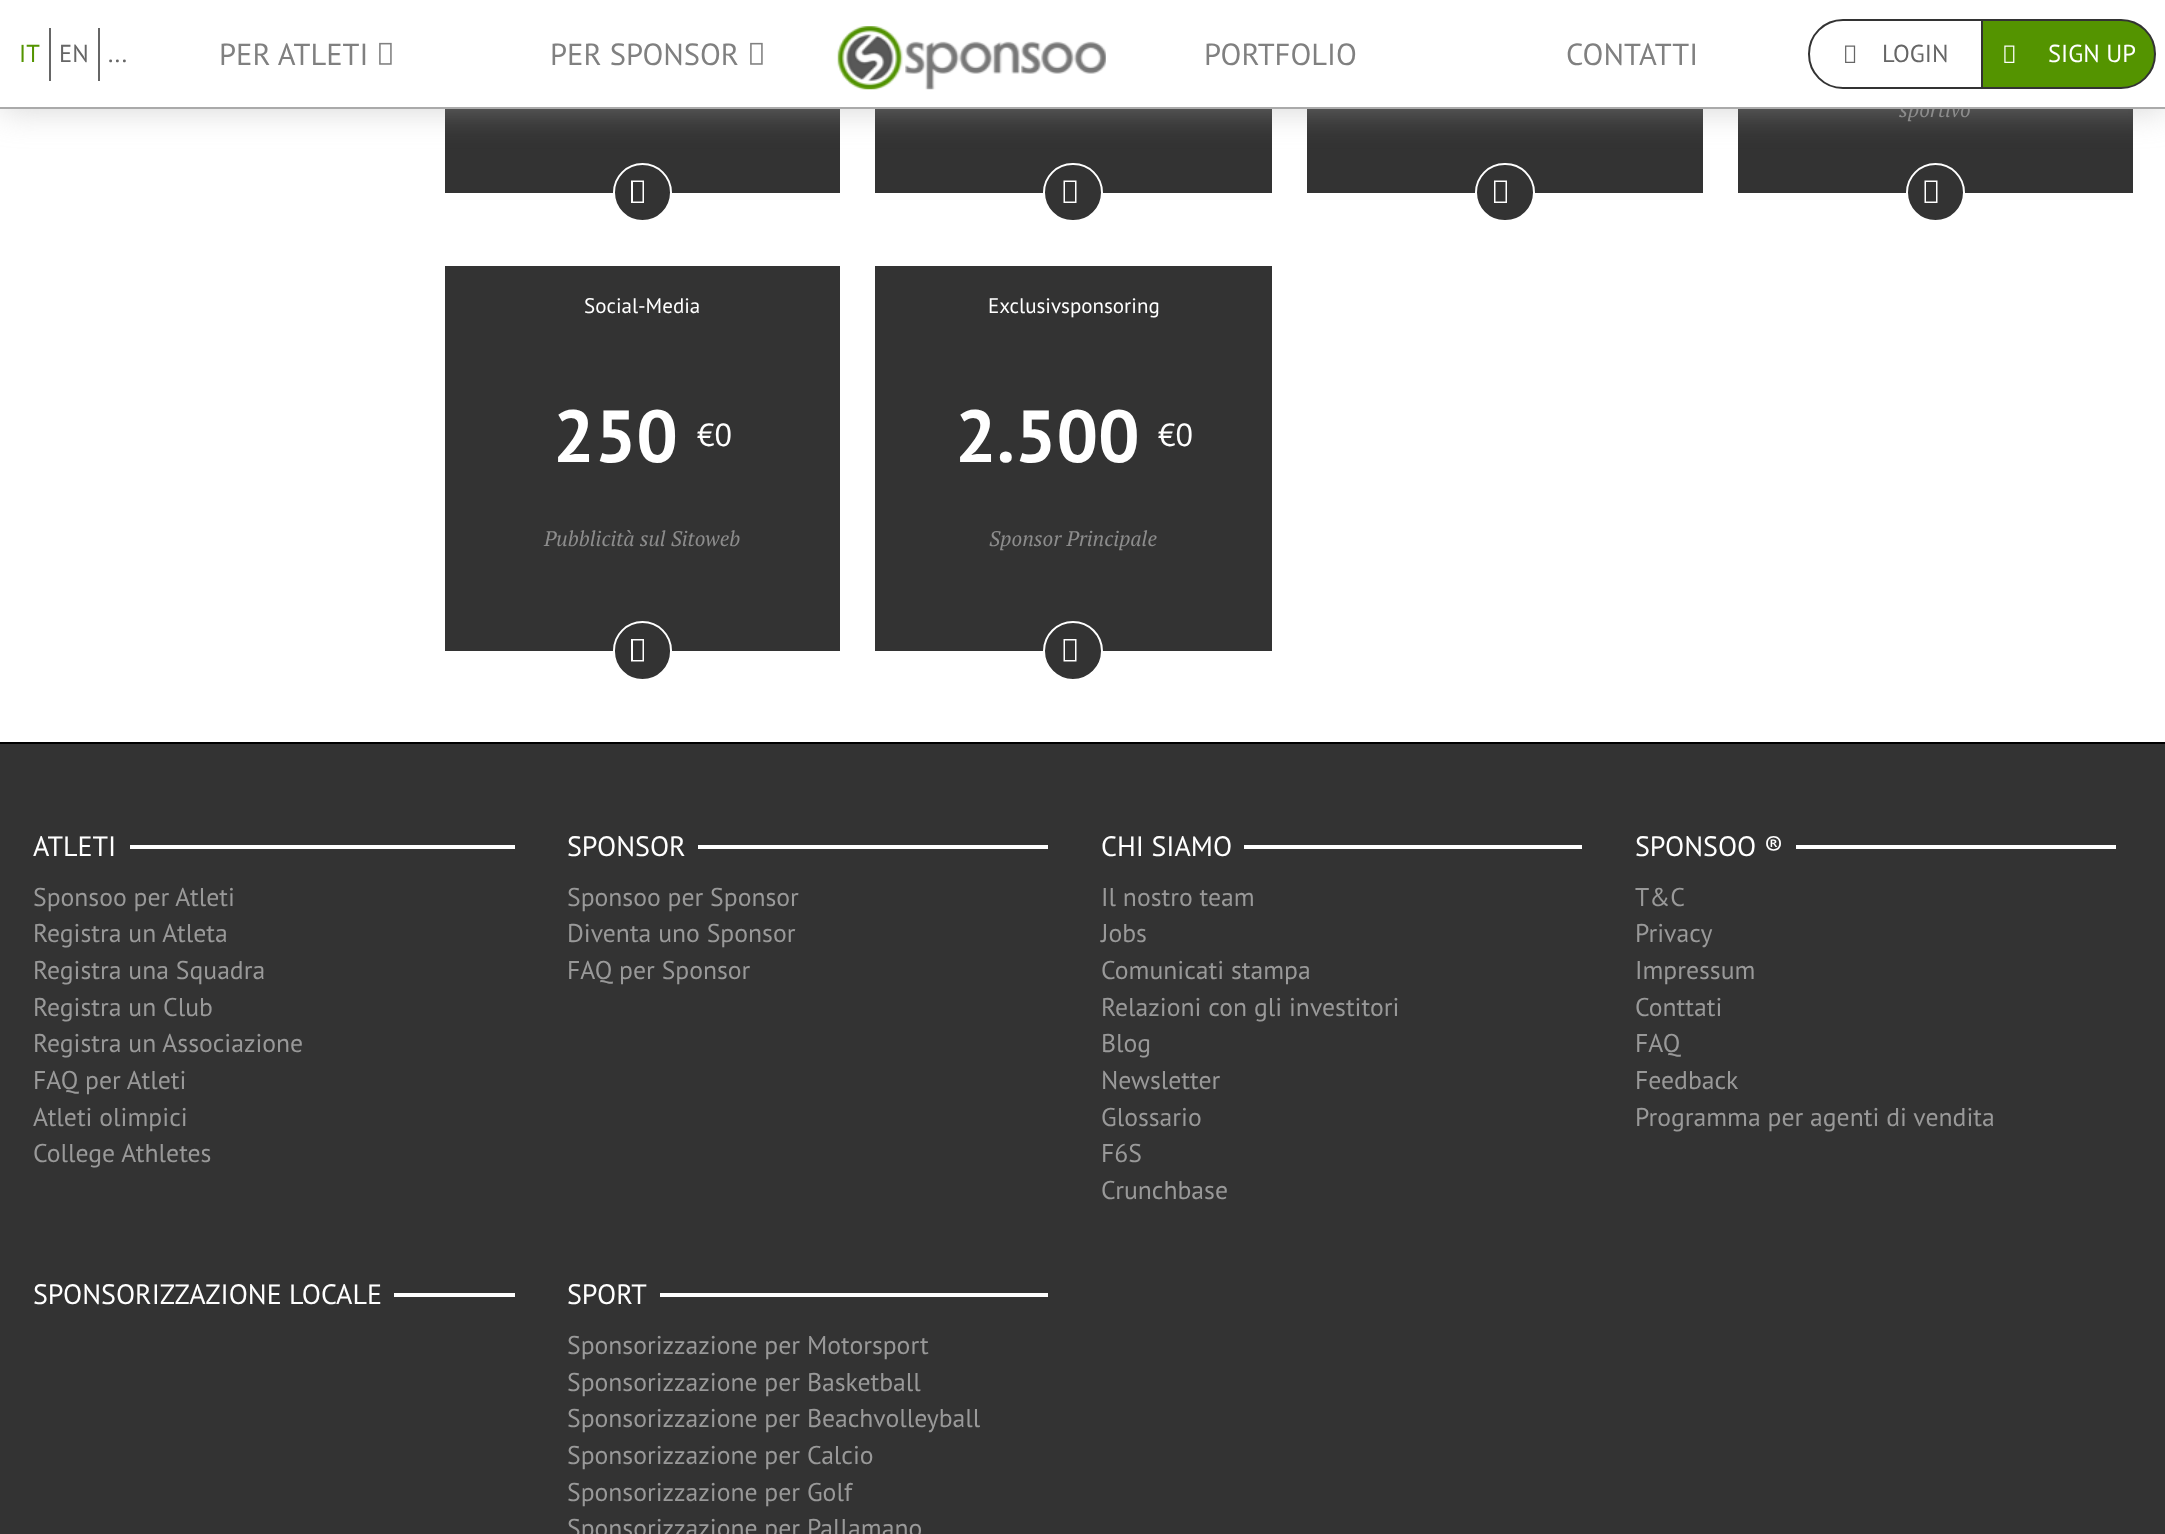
<svg xmlns="http://www.w3.org/2000/svg" width="2165" height="1534">
<style>
.a{font:italic 21px PT Serif;fill:#8c8c8c}
.b{font:24.5px PT Sans;fill:#fff}
.c{font:24.5px PT Sans;fill:#666}
.d{font:30.5px PT Sans;fill:#808080}
.e{font:24.5px PT Sans;fill:#549400}
.f{font:21px PT Sans;fill:#fff}
.g{font:bold 73.5px PT Sans;fill:#fff}
.h{font:32px PT Sans;fill:#fff}
.i{font:28px PT Sans;fill:#fff}
.j{font:25.7px PT Sans;fill:#999}
</style>
<rect width="100%" height="100%" fill="#fff"/>
<path fill="#333" d="M445 109h395v84H445z"/>
<path fill="#333" d="M875 109h397v84H875z"/>
<path fill="#333" d="M1307 109h396v84H1307z"/>
<path fill="#333" d="M1738 109h395v84H1738z"/>
<path fill="#aaaaaa80" filter="blur(17.5px)" d="M0 0h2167v109H0z"/>
<circle fill="#333" stroke="#fff" stroke-width="2" cx="642.5" cy="192.5" r="28.5"/>
<path fill="#fff" d="M631 203v-22.5h13v22.5zm2-1.5h9.5v-19.5h-9.5z"/>
<rect fill="#333" stroke="#fff" stroke-width="2" x="1044" y="164" width="58" height="57" rx="28.5"/>
<path fill="#fff" d="M1063.5 203v-22.5h13v22.5zm1.5-1.5h10v-19.5h-10z"/>
<rect fill="#333" stroke="#fff" stroke-width="2" x="1476" y="164" width="58" height="57" rx="28.5"/>
<path fill="#fff" d="M1494 203v-22.5h13v22.5zm1.5-1.5h10v-19.5h-10z"/>
<circle fill="#333" stroke="#fff" stroke-width="2" cx="1935.5" cy="192.5" r="28.5"/>
<path fill="#fff" d="M1924.5 203v-22.5h13v22.5zm1.5-1.5h10v-19.5h-10z"/>
<path fill="#333" d="M445 266h395v385H445z"/>
<rect fill="#333" stroke="#fff" stroke-width="2" x="614" y="622" width="57" height="58" rx="28.5"/>
<path fill="#fff" d="M631 661.5v-22.5h13v22.5zm2-1.5h9.5v-19.5h-9.5z"/>
<path fill="#333" d="M875 266h397v385H875z"/>
<circle fill="#333" stroke="#fff" stroke-width="2" cx="1073" cy="651" r="29"/>
<path fill="#fff" d="M1063.5 661.5v-22.5h13v22.5zm1.5-1.5h10v-19.5h-10z"/>
<path fill="#333" d="M0 744h2165v790H0z"/>
<path fill="#000" d="M0 742h2165v2H0z"/>
<path fill="#fff" d="M130 845h385v4H130z"/>
<path fill="#fff" d="M698 845h350v4H698z"/>
<path fill="#fff" d="M1244 845h338v4H1244z"/>
<path fill="#fff" d="M1796 845h320v4H1796z"/>
<path fill="#fff" d="M394 1293h121v4H394z"/>
<path fill="#fff" d="M660 1293h388v4H660z"/>
<text class="a" x="1899" y="117">sportivo</text>
<path fill="#fff" d="M0 0h2165v107H0z"/>
<path fill="none" stroke="#333" stroke-width="2" d="M1843 20h139v68h-139c-19 0-34-15-34-34c0-19 15-34 34-34z"/>
<path fill="#549400" stroke="#333" stroke-width="2" d="M1982 20h139c19 0 34 15 34 34c0 19-15 34-34 34h-139z"/>
<text class="b" x="2048" y="62">SIGN UP</text>
<image href="4.png" x="2004" y="45" width="11" height="18"/>
<text class="c" x="1882" y="62">LOGIN</text>
<image href="3.png" x="1845" y="45" width="11" height="18"/>
<text class="d" x="1566" y="65">CONTATTI</text>
<text class="d" x="1204" y="65">PORTFOLIO</text>
<image href="1.png" x="750" y="42" width="13" height="23"/>
<text class="d" x="550" y="65">PER SPONSOR</text>
<image href="1.png" x="379" y="42" width="13" height="23"/>
<text class="d" x="219" y="65">PER ATLETI</text>
<text class="c" x="108" y="62">...</text>
<text class="c" x="59" y="62">EN</text>
<path fill="#666" d="M98 28h2v53H98z"/>
<text class="e" x="19" y="62">IT</text>
<path fill="#666" d="M49 28h2v53H49z"/>
<image href="2.png" x="837" y="26" width="269" height="64"/>
<path fill="#aaa" d="M0 107h2165v2H0z"/>
<text class="f" x="584" y="313">Social-Media</text>
<text class="g" x="553" y="462">250</text>
<text class="h" x="697" y="446">€0</text>
<text class="a" x="544" y="546">Pubblicità sul Sitoweb</text>
<text class="f" x="988" y="313">Exclusivsponsoring</text>
<text class="g" x="955" y="462">2.500</text>
<text class="h" x="1158" y="446">€0</text>
<text class="a" x="989" y="546">Sponsor Principale</text>
<text class="i" x="33" y="856">ATLETI</text>
<text class="j" x="33" y="906">Sponsoo per Atleti</text>
<text class="j" x="33" y="942">Registra un Atleta</text>
<text class="j" x="33" y="979">Registra una Squadra</text>
<text class="j" x="33" y="1016">Registra un Club</text>
<text class="j" x="33" y="1052">Registra un Associazione</text>
<text class="j" x="33" y="1089">FAQ per Atleti</text>
<text class="j" x="33" y="1126">Atleti olimpici</text>
<text class="j" x="33" y="1162">College Athletes</text>
<text class="i" x="567" y="856">SPONSOR</text>
<text class="j" x="567" y="906">Sponsoo per Sponsor</text>
<text class="j" x="567" y="942">Diventa uno Sponsor</text>
<text class="j" x="567" y="979">FAQ per Sponsor</text>
<text class="i" x="1101" y="856">CHI SIAMO</text>
<text class="j" x="1101" y="906">Il nostro team</text>
<text class="j" x="1101" y="942">Jobs</text>
<text class="j" x="1101" y="979">Comunicati stampa</text>
<text class="j" x="1101" y="1016">Relazioni con gli investitori</text>
<text class="j" x="1101" y="1052">Blog</text>
<text class="j" x="1101" y="1089">Newsletter</text>
<text class="j" x="1101" y="1126">Glossario</text>
<text class="j" x="1101" y="1162">F6S</text>
<text class="j" x="1101" y="1199">Crunchbase</text>
<text class="i" x="1635" y="856">SPONSOO ®</text>
<text class="j" x="1635" y="906">T&amp;C</text>
<text class="j" x="1635" y="942">Privacy</text>
<text class="j" x="1635" y="979">Impressum</text>
<text class="j" x="1635" y="1016">Conttati</text>
<text class="j" x="1635" y="1052">FAQ</text>
<text class="j" x="1635" y="1089">Feedback</text>
<text class="j" x="1635" y="1126">Programma per agenti di vendita</text>
<text class="i" x="33" y="1304">SPONSORIZZAZIONE LOCALE</text>
<text class="i" x="567" y="1304">SPORT</text>
<text class="j" x="567" y="1354">Sponsorizzazione per Motorsport</text>
<text class="j" x="567" y="1391">Sponsorizzazione per Basketball</text>
<text class="j" x="567" y="1427">Sponsorizzazione per Beachvolleyball</text>
<text class="j" x="567" y="1464">Sponsorizzazione per Calcio</text>
<text class="j" x="567" y="1501">Sponsorizzazione per Golf</text>
<text class="j" x="567" y="1537">Sponsorizzazione per Pallamano</text>
</svg>
